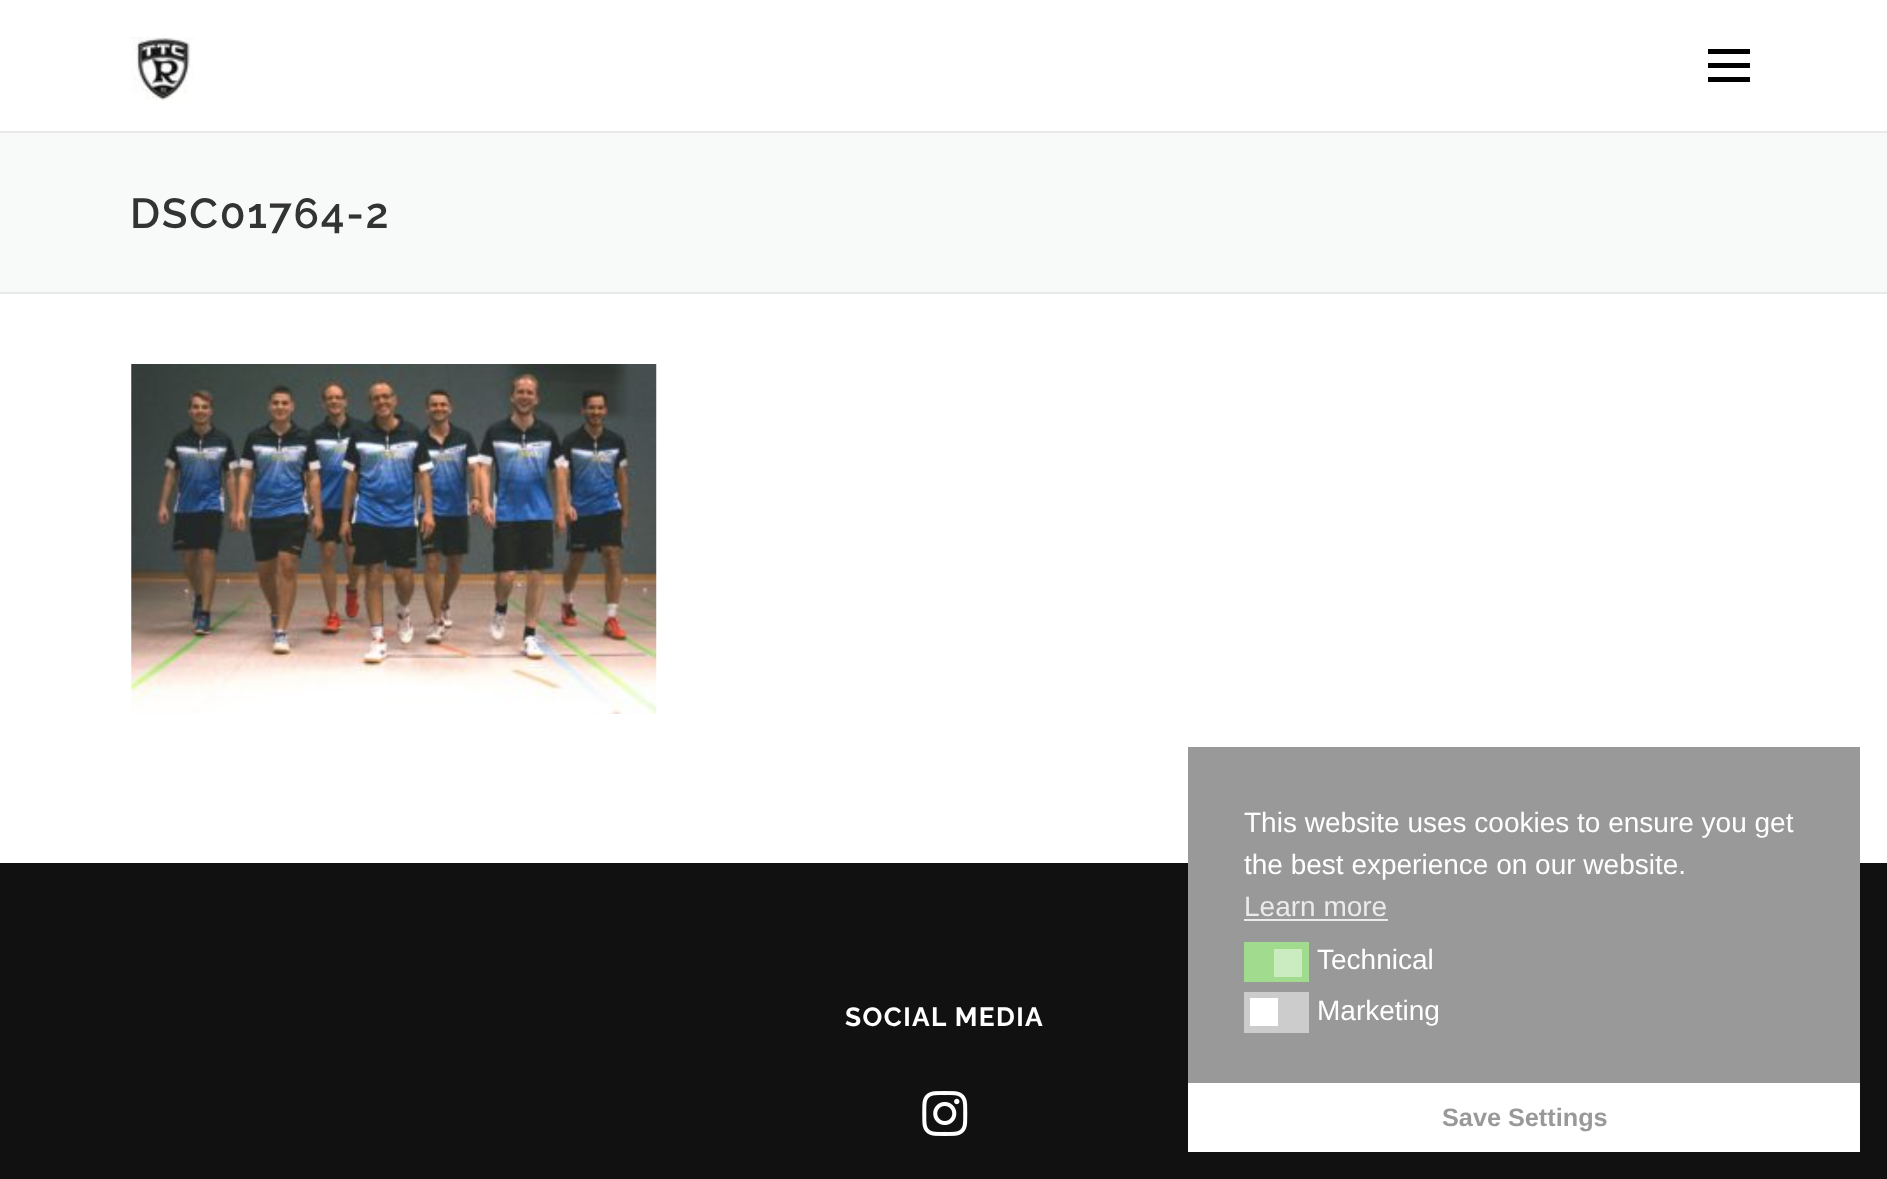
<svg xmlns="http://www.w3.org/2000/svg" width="1887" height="1179">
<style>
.a{font:600 42px Raleway;letter-spacing:1.75px;fill:#333}
.b{font:bold 26.25px Raleway;letter-spacing:1.4px;fill:#fff}
.c{font:28px Liberation Sans;fill:#fff}
.d{font:28px Liberation Sans;fill:#ebebeb}
.e{font:bold 25.25px Liberation Sans;fill:#999}
</style>
<rect width="100%" height="100%" fill="#fff"/>
<image href="1.png" x="131" y="37" width="63" height="64"/>
<path fill="#000" d="M1708 63h42v5H1708z"/>
<path fill="#000" d="M1708 49h42v5H1708z"/>
<path fill="#000" d="M1708 77h42v5H1708z"/>
<path fill="#f8f9f9" d="M0 133h1887v159H0z"/>
<path fill="#e9e9e9" d="M0 131h1887v2H0z"/>
<path fill="#e9e9e9" d="M0 292h1887v2H0z"/>
<image href="2.png" x="131" y="364" width="526" height="350"/>
<path fill="#111" d="M0 863h1887v316H0z"/>
<image href="3.png" x="922" y="1091" width="46" height="45"/>
<path fill="#999" d="M1188 747h672v336H1188z"/>
<path fill="#ebebeb" d="M1244 919h144v2H1244z"/>
<path fill="#a0db8e" d="M1244 942h65v40H1244z"/>
<path fill="#cbebc1" d="M1274 949h28v28H1274z"/>
<path fill="#ccc" d="M1244 992h65v41H1244z"/>
<path fill="#fff" d="M1250 998h28v28H1250z"/>
<path fill="#fff" d="M1188 1083h672v69H1188z"/>
<text class="a" x="130" y="228">DSC01764-2</text>
<text class="b" x="845" y="1026">SOCIAL MEDIA</text>
<text class="c" x="1244" y="832">This website uses cookies to ensure you get</text>
<text class="c" x="1244" y="874">the best experience on our website.</text>
<text class="d" x="1244" y="916">Learn more</text>
<text class="c" x="1317" y="969">Technical</text>
<text class="c" x="1317" y="1020">Marketing</text>
<text class="e" x="1442" y="1126">Save Settings</text>
</svg>
